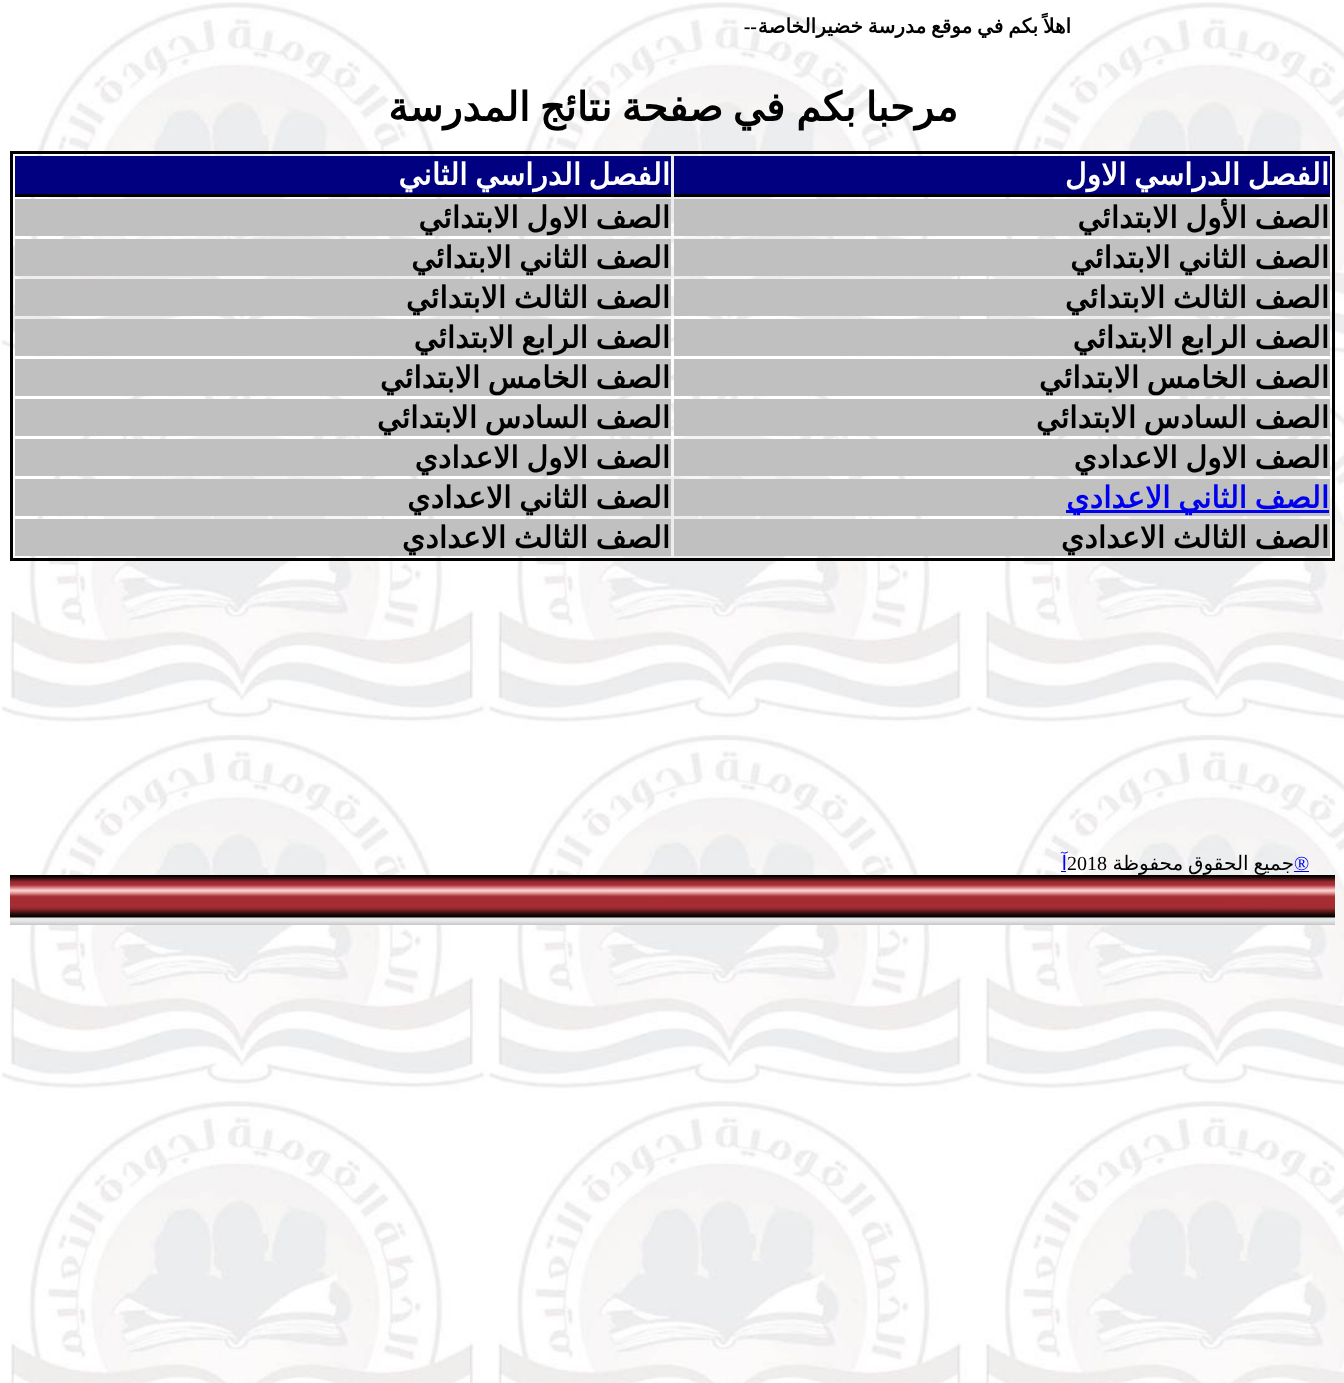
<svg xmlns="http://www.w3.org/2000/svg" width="1344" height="1383">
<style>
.a{font:bold 20px DejaVu Sans;direction:rtl;fill:#000}
.b{font:bold 20px Liberation Serif;direction:rtl;fill:#000}
.c{font:bold 40px DejaVu Sans;direction:rtl;fill:#000}
.d{font:bold 30px DejaVu Sans;direction:rtl;fill:#fff}
.e{font:bold 30px DejaVu Sans;direction:rtl;fill:#000}
.f{font:bold 30px DejaVu Sans;direction:rtl;fill:#00e}
.g{font:20px DejaVu Sans;direction:rtl;fill:#000}
.h{font:20px Liberation Serif;fill:#00e}
.i{font:20px Liberation Serif;fill:#000}
.j{font:20px DejaVu Sans;direction:rtl;fill:#00e}
</style>
<rect width="100%" height="100%" fill="#fff"/>
<image href="1.png" x="1" y="2" width="1343" height="1381"/>
<path fill="none" stroke="#000" stroke-width="3" d="M11.5 152.5h1322v407H11.5z"/>
<path fill="#000080" d="M674 156h656v38H674z"/>
<path fill="#000" d="M674 194h656v3H674z"/>
<path fill="#000080" d="M15 156h656v38H15z"/>
<path fill="#000" d="M15 194h656v3H15z"/>
<path fill="#c0c0c0" d="M674 199h656v37H674z"/>
<path fill="#c0c0c0" d="M15 199h656v37H15z"/>
<path fill="#c0c0c0" d="M674 239h656v37H674z"/>
<path fill="#c0c0c0" d="M15 239h656v37H15z"/>
<path fill="#c0c0c0" d="M674 279h656v37H674z"/>
<path fill="#c0c0c0" d="M15 279h656v37H15z"/>
<path fill="#c0c0c0" d="M674 319h656v37H674z"/>
<path fill="#c0c0c0" d="M15 319h656v37H15z"/>
<path fill="#c0c0c0" d="M674 359h656v37H674z"/>
<path fill="#c0c0c0" d="M15 359h656v37H15z"/>
<path fill="#c0c0c0" d="M674 399h656v37H674z"/>
<path fill="#c0c0c0" d="M15 399h656v37H15z"/>
<path fill="#c0c0c0" d="M674 439h656v37H674z"/>
<path fill="#c0c0c0" d="M15 439h656v37H15z"/>
<path fill="#c0c0c0" d="M674 479h656v37H674z"/>
<path fill="#00e" d="M1066 510h263v3H1066z"/>
<path fill="#c0c0c0" d="M15 479h656v37H15z"/>
<path fill="#c0c0c0" d="M674 519h656v37H674z"/>
<path fill="#c0c0c0" d="M15 519h656v37H15z"/>
<path fill="#00e" d="M1061 871h5v1H1061z"/>
<image href="2.png" x="10" y="875" width="1325" height="50"/>
<text class="a" x="1071" y="33" word-spacing="-1.5">اهلاً بكم في موقع مدرسة خضيرالخاصة</text>
<text class="b" x="757" y="33">--</text>
<text class="c" x="958" y="121" word-spacing="-3">مرحبا بكم</text>
<text class="c" x="785" y="121">في</text>
<text class="c" x="723" y="121" word-spacing="-3">صفحة نتائج المدرسة</text>
<text class="d" x="1329" y="185" word-spacing="-2">الفصل الدراسي الاول</text>
<text class="d" x="670" y="185" word-spacing="-2">الفصل الدراسي الثاني</text>
<text class="e" x="1329" y="228" word-spacing="-2">الصف الأول الابتدائي</text>
<text class="e" x="670" y="228" word-spacing="-2">الصف الاول الابتدائي</text>
<text class="e" x="1329" y="268" word-spacing="-2">الصف الثاني الابتدائي</text>
<text class="e" x="670" y="268" word-spacing="-2">الصف الثاني الابتدائي</text>
<text class="e" x="1329" y="308" word-spacing="-2">الصف الثالث الابتدائي</text>
<text class="e" x="670" y="308" word-spacing="-2">الصف الثالث الابتدائي</text>
<text class="e" x="1329" y="348" word-spacing="-2">الصف الرابع الابتدائي</text>
<text class="e" x="670" y="348" word-spacing="-2">الصف الرابع الابتدائي</text>
<text class="e" x="1329" y="388" word-spacing="-2">الصف الخامس الابتدائي</text>
<text class="e" x="670" y="388" word-spacing="-2">الصف الخامس الابتدائي</text>
<text class="e" x="1329" y="428" word-spacing="-2">الصف السادس الابتدائي</text>
<text class="e" x="670" y="428" word-spacing="-2">الصف السادس الابتدائي</text>
<text class="e" x="1329" y="468" word-spacing="-2">الصف الاول الاعدادي</text>
<text class="e" x="670" y="468" word-spacing="-2">الصف الاول الاعدادي</text>
<text class="f" x="1329" y="508" word-spacing="-2">الصف الثاني الاعدادي</text>
<text class="e" x="670" y="508" word-spacing="-2">الصف الثاني الاعدادي</text>
<text class="e" x="1329" y="548" word-spacing="-2">الصف الثالث الاعدادي</text>
<text class="e" x="670" y="548" word-spacing="-2">الصف الثالث الاعدادي</text>
<text class="g" x="1294" y="870" word-spacing="-1.5">جميع الحقوق محفوظة</text>
<text class="h" x="1294" y="870">®</text>
<path fill="#00e" d="M1294 871h15v1H1294z"/>
<text class="i" x="1067" y="870">2018</text>
<text class="j" x="1067" y="870">آ</text>
</svg>
